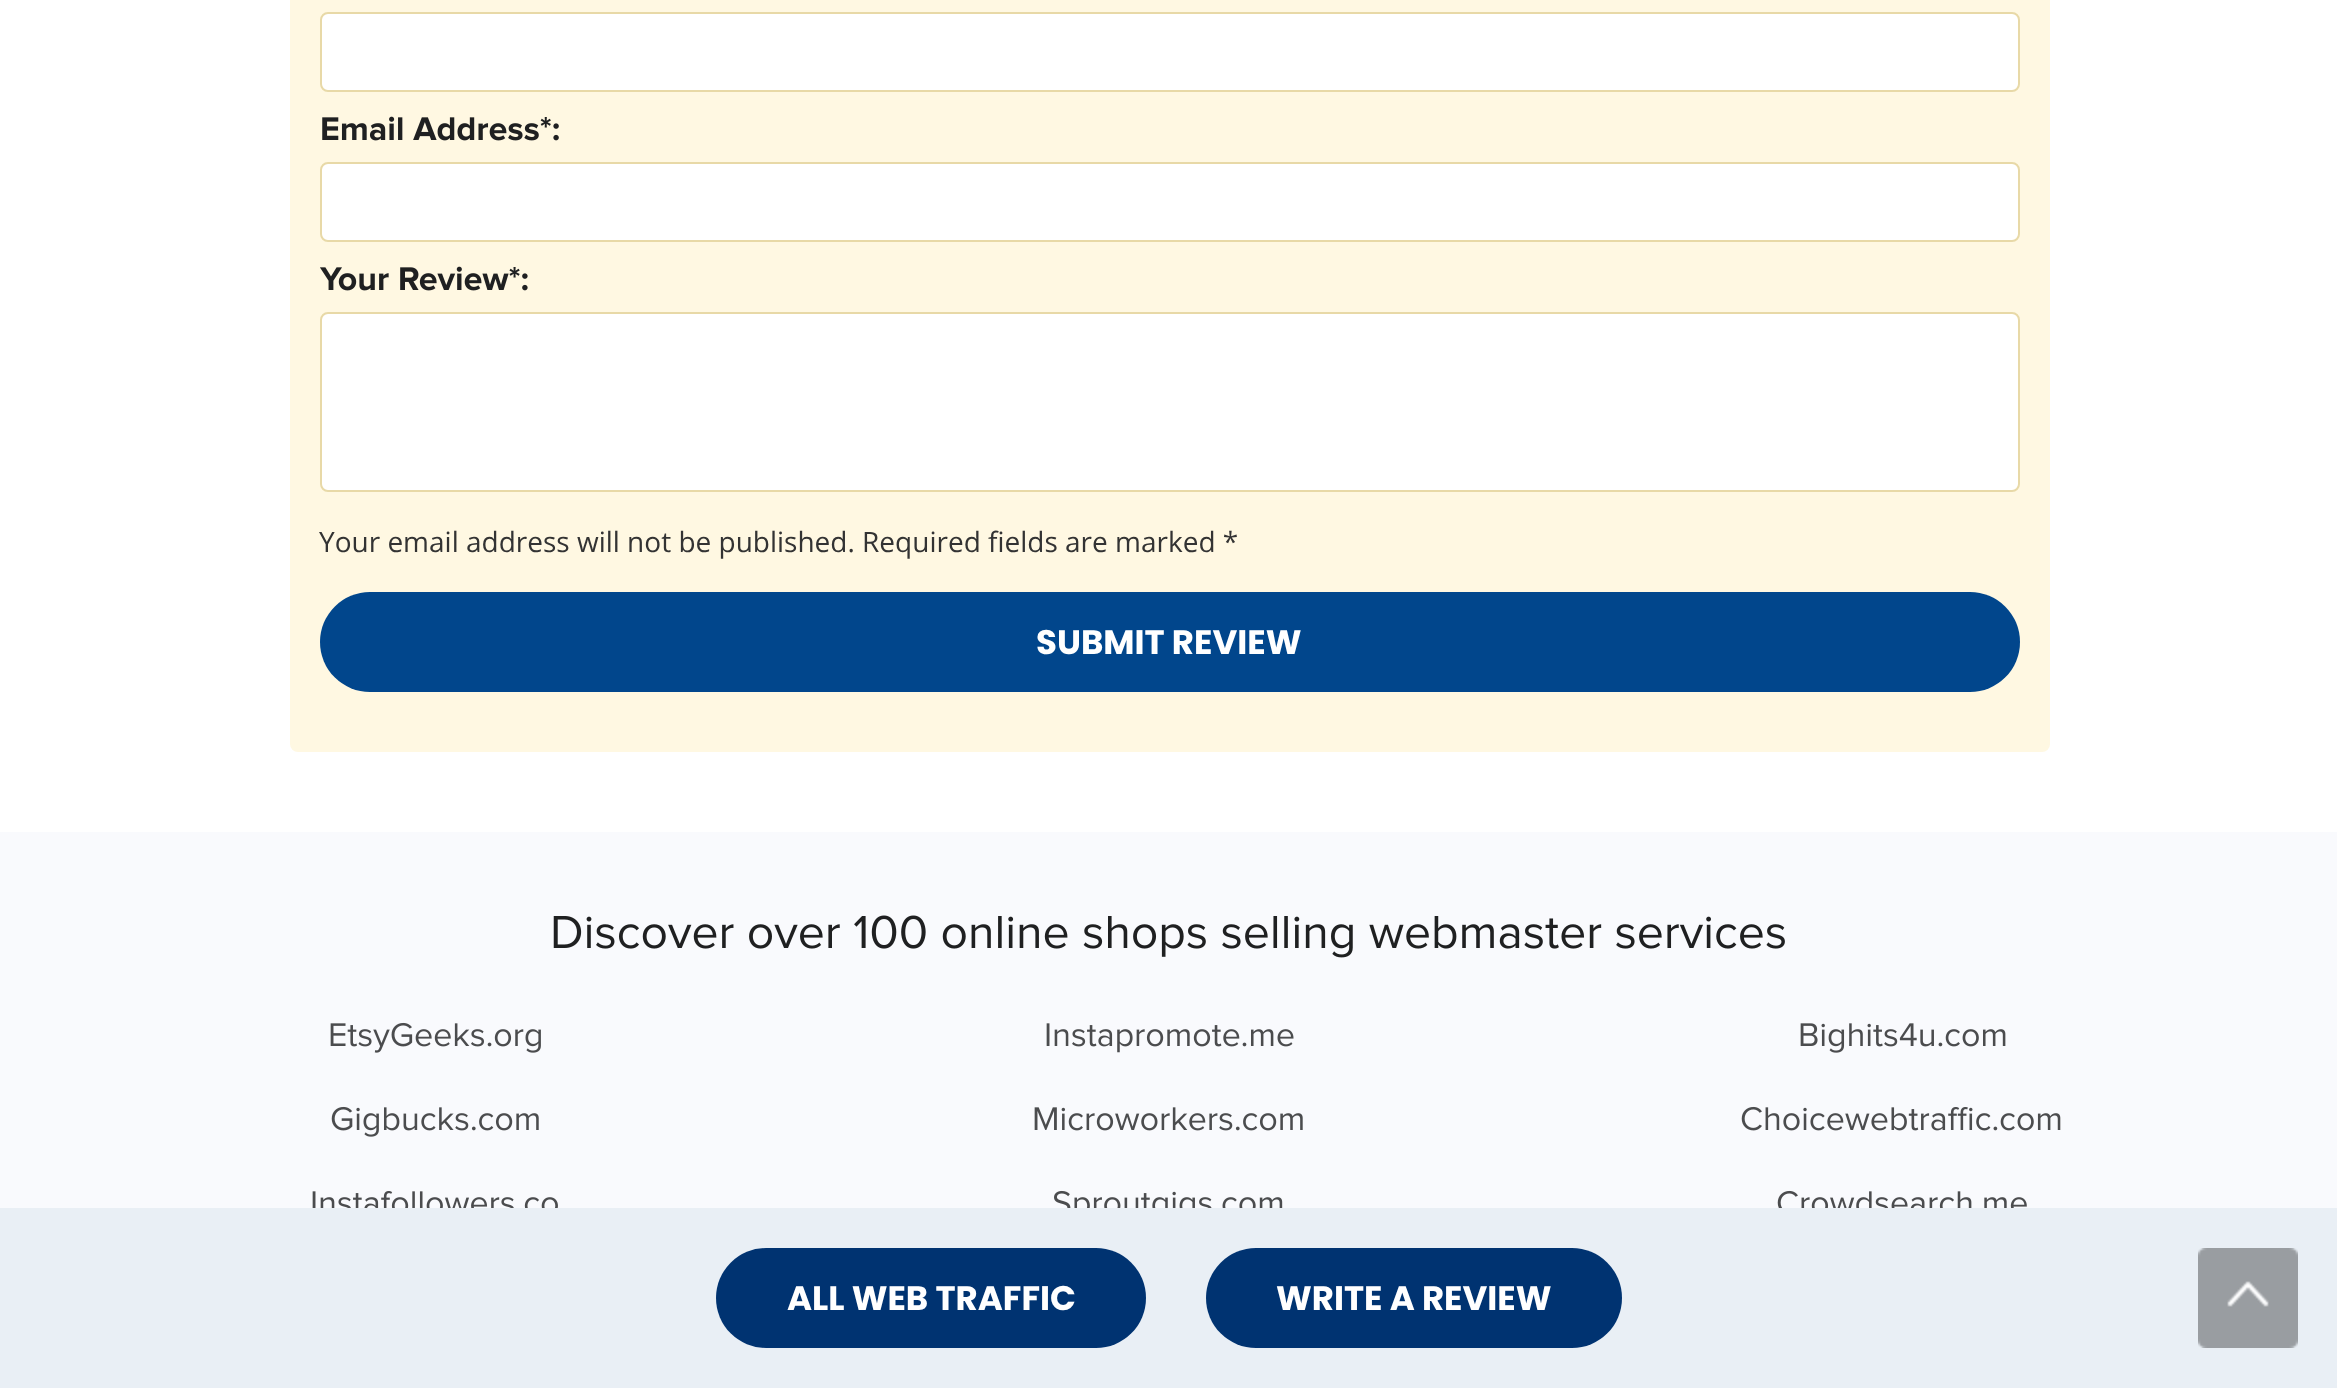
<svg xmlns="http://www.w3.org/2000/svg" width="2337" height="1388">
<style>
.a{font:28px Open Sans;fill:#333}
.b{font:bold 34px Poppins;fill:#fff}
</style>
<rect width="100%" height="100%" fill="#fff"/>
<rect fill="#fff8e2" x="290" y="-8" width="1760" height="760" rx="8"/>
<rect fill="#fff" stroke="#e8d9a7" stroke-width="2" x="321" y="13" width="1698" height="78" rx="7"/>
<image href="1.png" x="322" y="116" width="237" height="25"/>
<rect fill="#fff" stroke="#e8d9a7" stroke-width="2" x="321" y="163" width="1698" height="78" rx="7"/>
<image href="2.png" x="320" y="266" width="208" height="25"/>
<rect fill="#fff" stroke="#e8d9a7" stroke-width="2" x="321" y="313" width="1698" height="178" rx="7"/>
<rect fill="#01468c" x="320" y="592" width="1700" height="100" rx="50"/>
<path fill="#e9eff5" d="M0 1208h2337v180H0z"/>
<rect fill="#003371" x="716" y="1248" width="430" height="100" rx="50"/>
<rect fill="#003371" x="1206" y="1248" width="416" height="100" rx="50"/>
<path fill="#f9fafd" d="M0 832h2337v376H0z"/>
<image href="3.png" x="553" y="915" width="1232" height="43"/>
<image href="4.png" x="330" y="1022" width="211" height="31"/>
<image href="5.png" x="331" y="1106" width="208" height="31"/>
<image href="6.png" x="312" y="1191" width="246" height="17"/>
<image href="7.png" x="1046" y="1023" width="248" height="30"/>
<image href="8.png" x="1034" y="1107" width="269" height="24"/>
<image href="9.png" x="1054" y="1190" width="229" height="18"/>
<image href="10.png" x="1800" y="1023" width="206" height="30"/>
<image href="11.png" x="1741" y="1106" width="320" height="25"/>
<image href="12.png" x="1777" y="1190" width="250" height="18"/>
<image href="13.png" x="2198" y="1248" width="100" height="100"/>
<text class="a" x="319" y="552">Your email address will not be published. Required fields are marked *</text>
<text class="b" x="1036" y="654">SUBMIT REVIEW</text>
<text class="b" x="787" y="1310">ALL WEB TRAFFIC</text>
<text class="b" x="1276" y="1310">WRITE A REVIEW</text>
</svg>
